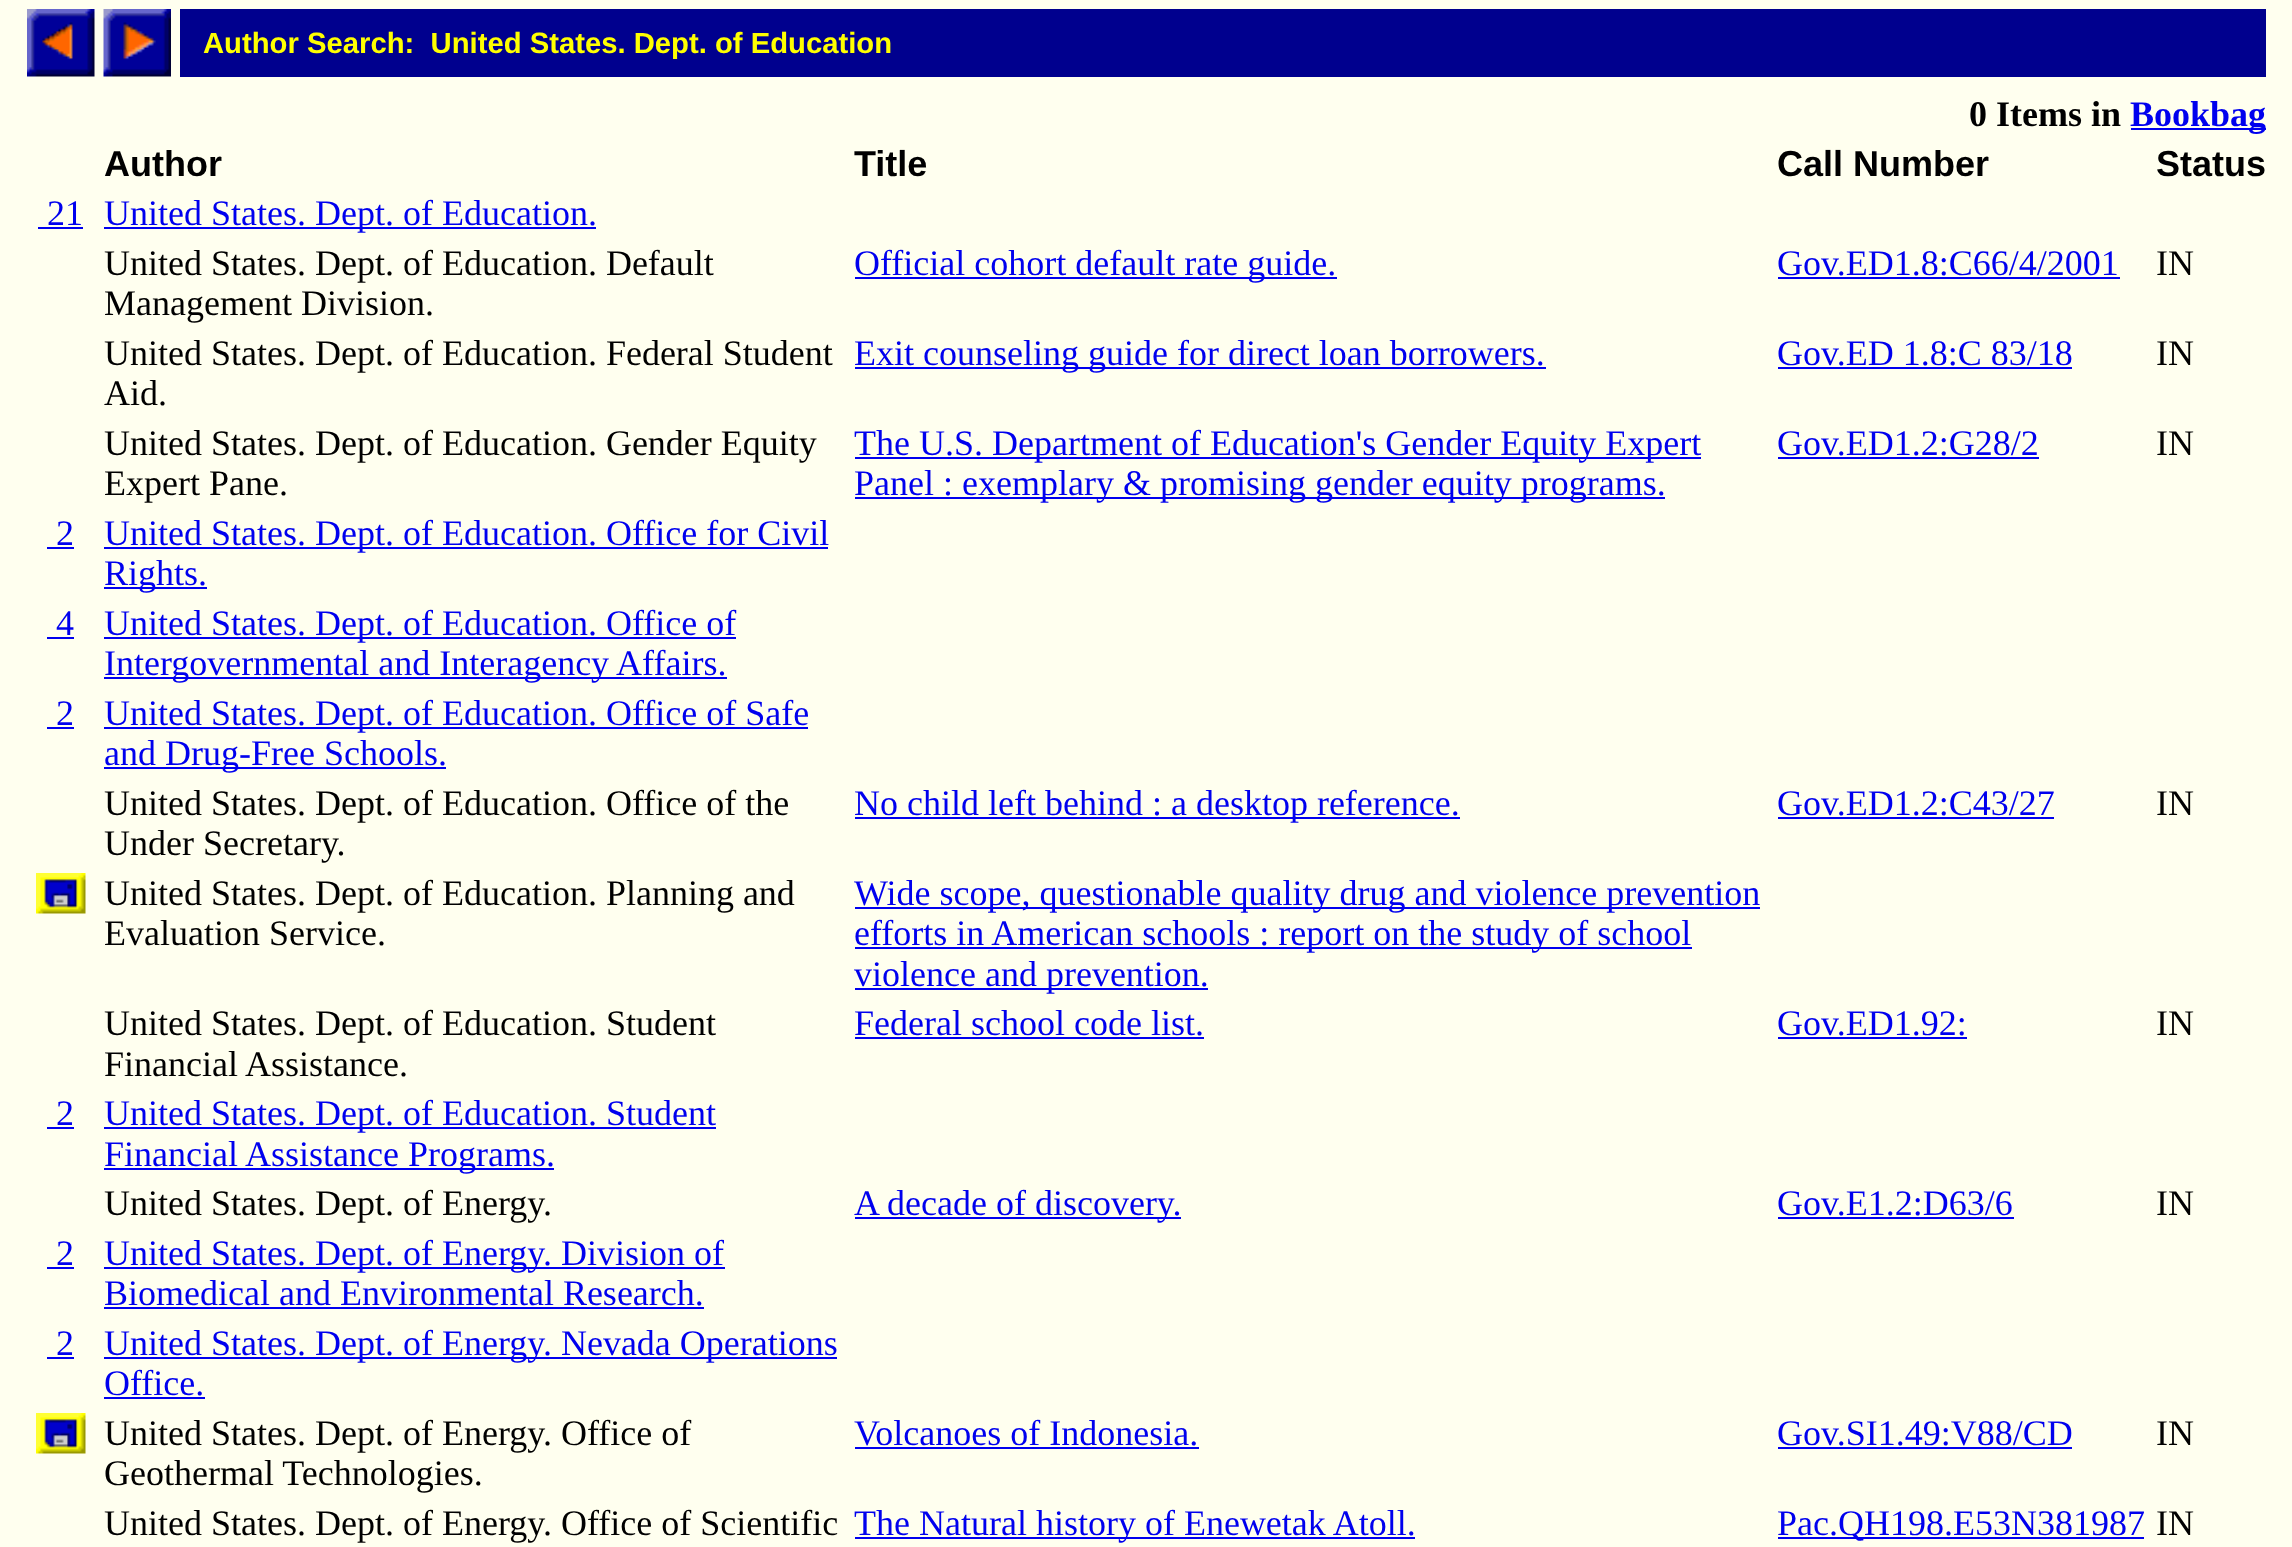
<svg xmlns="http://www.w3.org/2000/svg" width="2292" height="1547">
<style>
.a{font:bold 29.25px Liberation Sans;fill:#ff0}
.b{font:bold 36px Liberation Serif;fill:#000}
.c{font:bold 36px Liberation Serif;fill:#00e}
.d{font:bold 36px Liberation Sans;fill:#000}
.e{font:36px Liberation Serif;fill:#00e}
.f{font:36px Liberation Serif;fill:#000}
</style>
<rect width="100%" height="100%" fill="#ffffef"/>
<image href="1.png" x="27" y="9" width="68" height="68"/>
<image href="2.png" x="103" y="9" width="68" height="68"/>
<path fill="#00008e" d="M180 9h2086v68H180z"/>
<path fill="#00e" d="M2131 128h135v2H2131z"/>
<path fill="#00e" d="M38 227h45v2H38z"/>
<path fill="#00e" d="M104 227h492v2H104z"/>
<path fill="#00e" d="M855 277h482v2H855z"/>
<path fill="#00e" d="M1778 277h342v2H1778z"/>
<path fill="#00e" d="M855 367h691v2H855z"/>
<path fill="#00e" d="M1778 367h294v2H1778z"/>
<path fill="#00e" d="M855 457h846v2H855z"/>
<path fill="#00e" d="M855 497h810v2H855z"/>
<path fill="#00e" d="M1778 457h261v2H1778z"/>
<path fill="#00e" d="M47 547h27v2H47z"/>
<path fill="#00e" d="M104 547h724v2H104z"/>
<path fill="#00e" d="M104 587h103v2H104z"/>
<path fill="#00e" d="M47 637h27v2H47z"/>
<path fill="#00e" d="M104 637h632v2H104z"/>
<path fill="#00e" d="M104 677h623v2H104z"/>
<path fill="#00e" d="M47 727h27v2H47z"/>
<path fill="#00e" d="M104 727h704v2H104z"/>
<path fill="#00e" d="M104 767h342v2H104z"/>
<path fill="#00e" d="M855 817h605v2H855z"/>
<path fill="#00e" d="M1778 817h276v2H1778z"/>
<image href="3.png" x="36" y="873" width="50" height="41"/>
<path fill="#00e" d="M855 907h905v2H855z"/>
<path fill="#00e" d="M855 947h837v2H855z"/>
<path fill="#00e" d="M855 988h353v2H855z"/>
<path fill="#00e" d="M855 1037h349v2H855z"/>
<path fill="#00e" d="M1778 1037h189v2H1778z"/>
<path fill="#00e" d="M47 1127h27v2H47z"/>
<path fill="#00e" d="M104 1127h612v2H104z"/>
<path fill="#00e" d="M104 1168h450v2H104z"/>
<path fill="#00e" d="M855 1217h326v2H855z"/>
<path fill="#00e" d="M1778 1217h236v2H1778z"/>
<path fill="#00e" d="M47 1267h27v2H47z"/>
<path fill="#00e" d="M104 1267h621v2H104z"/>
<path fill="#00e" d="M104 1307h600v2H104z"/>
<path fill="#00e" d="M47 1357h27v2H47z"/>
<path fill="#00e" d="M104 1357h733v2H104z"/>
<path fill="#00e" d="M104 1397h101v2H104z"/>
<image href="3.png" x="36" y="1413" width="50" height="41"/>
<path fill="#00e" d="M855 1447h344v2H855z"/>
<path fill="#00e" d="M1778 1447h294v2H1778z"/>
<path fill="#00e" d="M855 1537h560v2H855z"/>
<path fill="#00e" d="M1778 1537h366v2H1778z"/>
<text class="a" xml:space="preserve" x="203" y="53">Author Search:  United States. Dept. of Education</text>
<text class="b" x="1969" y="126">0 Items in</text>
<text class="c" x="2130" y="126">Bookbag</text>
<text class="d" x="104" y="176">Author</text>
<text class="d" x="854" y="176">Title</text>
<text class="d" x="1777" y="176">Call Number</text>
<text class="d" x="2156" y="176">Status</text>
<text class="e" x="47" y="225">21</text>
<text class="e" x="104" y="225">United States. Dept. of Education.</text>
<text class="f" x="104" y="275">United States. Dept. of Education. Default</text>
<text class="f" x="104" y="315">Management Division.</text>
<text class="e" x="854" y="275">Official cohort default rate guide.</text>
<text class="e" x="1777" y="275">Gov.ED1.8:C66/4/2001</text>
<text class="f" x="2156" y="275">IN</text>
<text class="f" x="104" y="365">United States. Dept. of Education. Federal Student</text>
<text class="f" x="104" y="405">Aid.</text>
<text class="e" x="854" y="365">Exit counseling guide for direct loan borrowers.</text>
<text class="e" x="1777" y="365">Gov.ED 1.8:C 83/18</text>
<text class="f" x="2156" y="365">IN</text>
<text class="f" x="104" y="455">United States. Dept. of Education. Gender Equity</text>
<text class="f" x="104" y="495">Expert Pane.</text>
<text class="e" x="854" y="455">The U.S. Department of Education's Gender Equity Expert</text>
<text class="e" x="854" y="495">Panel : exemplary &amp; promising gender equity programs.</text>
<text class="e" x="1777" y="455">Gov.ED1.2:G28/2</text>
<text class="f" x="2156" y="455">IN</text>
<text class="e" x="56" y="545">2</text>
<text class="e" x="104" y="545">United States. Dept. of Education. Office for Civil</text>
<text class="e" x="104" y="585">Rights.</text>
<text class="e" x="56" y="635">4</text>
<text class="e" x="104" y="635">United States. Dept. of Education. Office of</text>
<text class="e" x="104" y="675">Intergovernmental and Interagency Affairs.</text>
<text class="e" x="56" y="725">2</text>
<text class="e" x="104" y="725">United States. Dept. of Education. Office of Safe</text>
<text class="e" x="104" y="765">and Drug-Free Schools.</text>
<text class="f" x="104" y="815">United States. Dept. of Education. Office of the</text>
<text class="f" x="104" y="855">Under Secretary.</text>
<text class="e" x="854" y="815">No child left behind : a desktop reference.</text>
<text class="e" x="1777" y="815">Gov.ED1.2:C43/27</text>
<text class="f" x="2156" y="815">IN</text>
<text class="f" x="104" y="905">United States. Dept. of Education. Planning and</text>
<text class="f" x="104" y="945">Evaluation Service.</text>
<text class="e" x="854" y="905">Wide scope, questionable quality drug and violence prevention</text>
<text class="e" x="854" y="945">efforts in American schools : report on the study of school</text>
<text class="e" x="854" y="986">violence and prevention.</text>
<text class="f" x="104" y="1035">United States. Dept. of Education. Student</text>
<text class="f" x="104" y="1076">Financial Assistance.</text>
<text class="e" x="854" y="1035">Federal school code list.</text>
<text class="e" x="1777" y="1035">Gov.ED1.92:</text>
<text class="f" x="2156" y="1035">IN</text>
<text class="e" x="56" y="1125">2</text>
<text class="e" x="104" y="1125">United States. Dept. of Education. Student</text>
<text class="e" x="104" y="1166">Financial Assistance Programs.</text>
<text class="f" x="104" y="1215">United States. Dept. of Energy.</text>
<text class="e" x="854" y="1215">A decade of discovery.</text>
<text class="e" x="1777" y="1215">Gov.E1.2:D63/6</text>
<text class="f" x="2156" y="1215">IN</text>
<text class="e" x="56" y="1265">2</text>
<text class="e" x="104" y="1265">United States. Dept. of Energy. Division of</text>
<text class="e" x="104" y="1305">Biomedical and Environmental Research.</text>
<text class="e" x="56" y="1355">2</text>
<text class="e" x="104" y="1355">United States. Dept. of Energy. Nevada Operations</text>
<text class="e" x="104" y="1395">Office.</text>
<text class="f" x="104" y="1445">United States. Dept. of Energy. Office of</text>
<text class="f" x="104" y="1485">Geothermal Technologies.</text>
<text class="e" x="854" y="1445">Volcanoes of Indonesia.</text>
<text class="e" x="1777" y="1445">Gov.SI1.49:V88/CD</text>
<text class="f" x="2156" y="1445">IN</text>
<text class="f" x="104" y="1535">United States. Dept. of Energy. Office of Scientific</text>
<text class="e" x="854" y="1535">The Natural history of Enewetak Atoll.</text>
<text class="e" x="1777" y="1535">Pac.QH198.E53N381987</text>
<text class="f" x="2156" y="1535">IN</text>
</svg>
